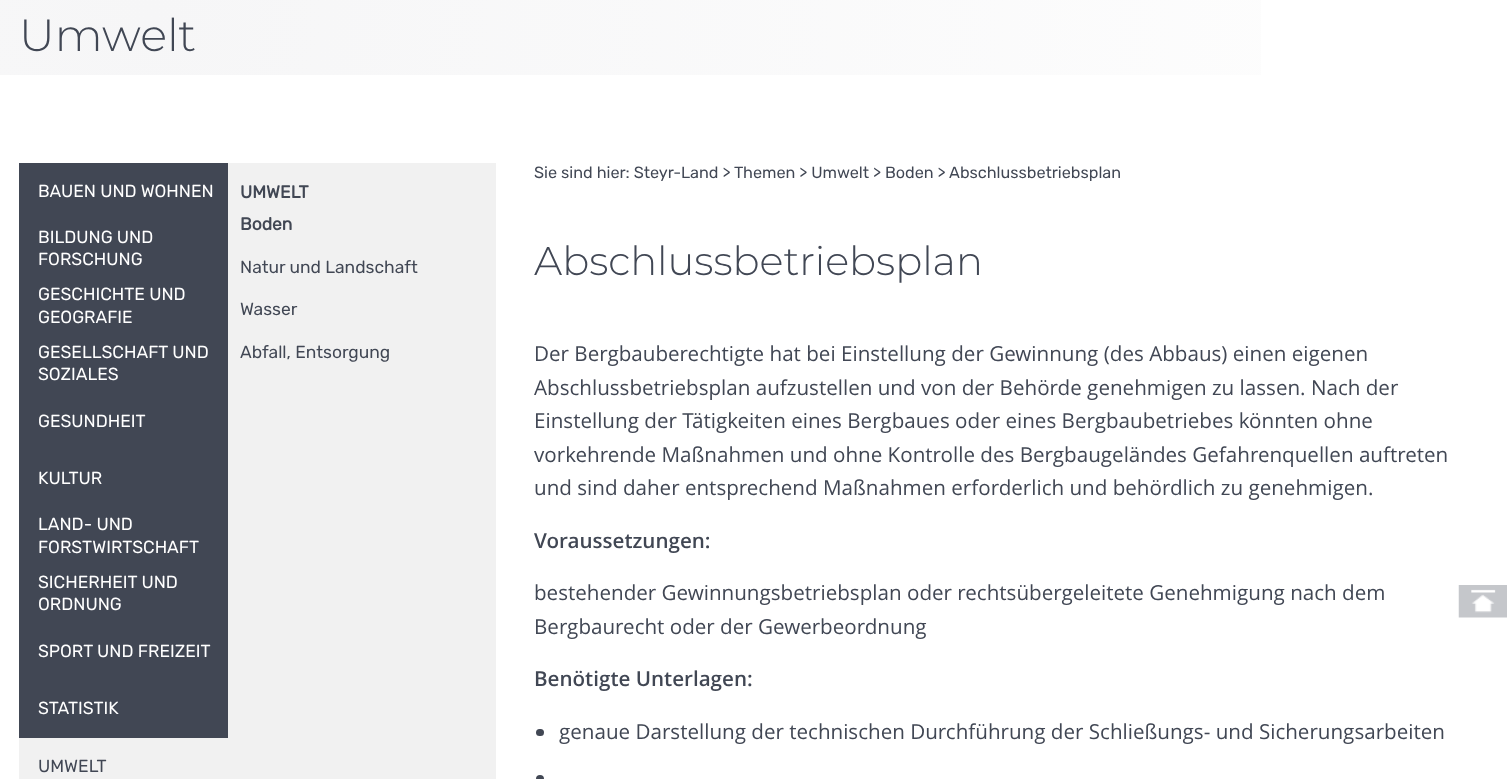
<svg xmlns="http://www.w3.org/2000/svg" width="1507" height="779">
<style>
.a{font:300 45px Montserrat;fill:#414754}
.b{font:16.25px Rubik;fill:#414754}
.c{font:300 40px Montserrat;fill:#414754}
.d{font:20.6px Open Sans;fill:#414754}
.e{font:600 20.6px Open Sans;fill:#414754}
.f{font:17.5px Rubik;fill:#fff}
.g{font:bold 17.5px Rubik;fill:#414754}
.h{font:17.5px Rubik;fill:#414754}
</style>
<defs>
<radialGradient id="g1" gradientUnits="userSpaceOnUse" cx="151" cy="12" r="1368"><stop offset="0" stop-color="#f6f6f7"/><stop offset="1" stop-color="#fefefe"/></radialGradient>
</defs>
<rect width="100%" height="100%" fill="#fff"/>
<path fill="url(#g1)" d="M0 0h1261v75H0z"/>
<path fill="#414754" d="M19 163h209v575H19z"/>
<path fill="#f1f1f1" d="M228 163h268v575H228z"/>
<rect fill="#414754" x="536" y="729" width="8" height="7" rx="3.5"/>
<circle fill="#414754" cx="540" cy="779" r="4"/>
<path fill="#f1f1f1" d="M19 738h477v41H19z"/>
<image href="1.png" x="1458" y="585" width="49" height="33"/>
<text class="a" x="19" y="51">Umwelt</text>
<text class="b" x="534" y="178">Sie sind hier: Steyr-Land &gt; Themen &gt; Umwelt &gt; Boden &gt; Abschlussbetriebsplan</text>
<text class="c" x="534" y="275">Abschlussbetriebsplan</text>
<text class="d" x="534" y="361">Der Bergbauberechtigte hat bei Einstellung der Gewinnung (des Abbaus) einen eigenen</text>
<text class="d" x="534" y="395">Abschlussbetriebsplan aufzustellen und von der Behörde genehmigen zu lassen. Nach der</text>
<text class="d" x="534" y="428">Einstellung der Tätigkeiten eines Bergbaues oder eines Bergbaubetriebes könnten ohne</text>
<text class="d" x="534" y="462">vorkehrende Maßnahmen und ohne Kontrolle des Bergbaugeländes Gefahrenquellen auftreten</text>
<text class="d" x="534" y="495">und sind daher entsprechend Maßnahmen erforderlich und behördlich zu genehmigen.</text>
<text class="e" x="534" y="548">Voraussetzungen:</text>
<text class="d" x="534" y="600">bestehender Gewinnungsbetriebsplan oder rechtsübergeleitete Genehmigung nach dem</text>
<text class="d" x="534" y="634">Bergbaurecht oder der Gewerbeordnung</text>
<text class="e" x="534" y="686">Benötigte Unterlagen:</text>
<text class="d" x="559" y="739">genaue Darstellung der technischen Durchführung der Schließungs- und Sicherungsarbeiten</text>
<text class="f" x="38" y="197">BAUEN UND WOHNEN</text>
<text class="g" x="240" y="198">UMWELT</text>
<text class="g" x="240" y="230">Boden</text>
<text class="h" x="240" y="273">Natur und Landschaft</text>
<text class="h" x="240" y="315">Wasser</text>
<text class="h" x="240" y="358">Abfall, Entsorgung</text>
<text class="h" x="38" y="772">UMWELT</text>
<text class="f" x="38" y="243">BILDUNG UND</text>
<text class="f" x="38" y="265">FORSCHUNG</text>
<text class="f" x="38" y="300">GESCHICHTE UND</text>
<text class="f" x="38" y="323">GEOGRAFIE</text>
<text class="f" x="38" y="358">GESELLSCHAFT UND</text>
<text class="f" x="38" y="380">SOZIALES</text>
<text class="f" x="38" y="427">GESUNDHEIT</text>
<text class="f" x="38" y="484">KULTUR</text>
<text class="f" x="38" y="530">LAND- UND</text>
<text class="f" x="38" y="553">FORSTWIRTSCHAFT</text>
<text class="f" x="38" y="588">SICHERHEIT UND</text>
<text class="f" x="38" y="610">ORDNUNG</text>
<text class="f" x="38" y="657">SPORT UND FREIZEIT</text>
<text class="f" x="38" y="714">STATISTIK</text>
</svg>
